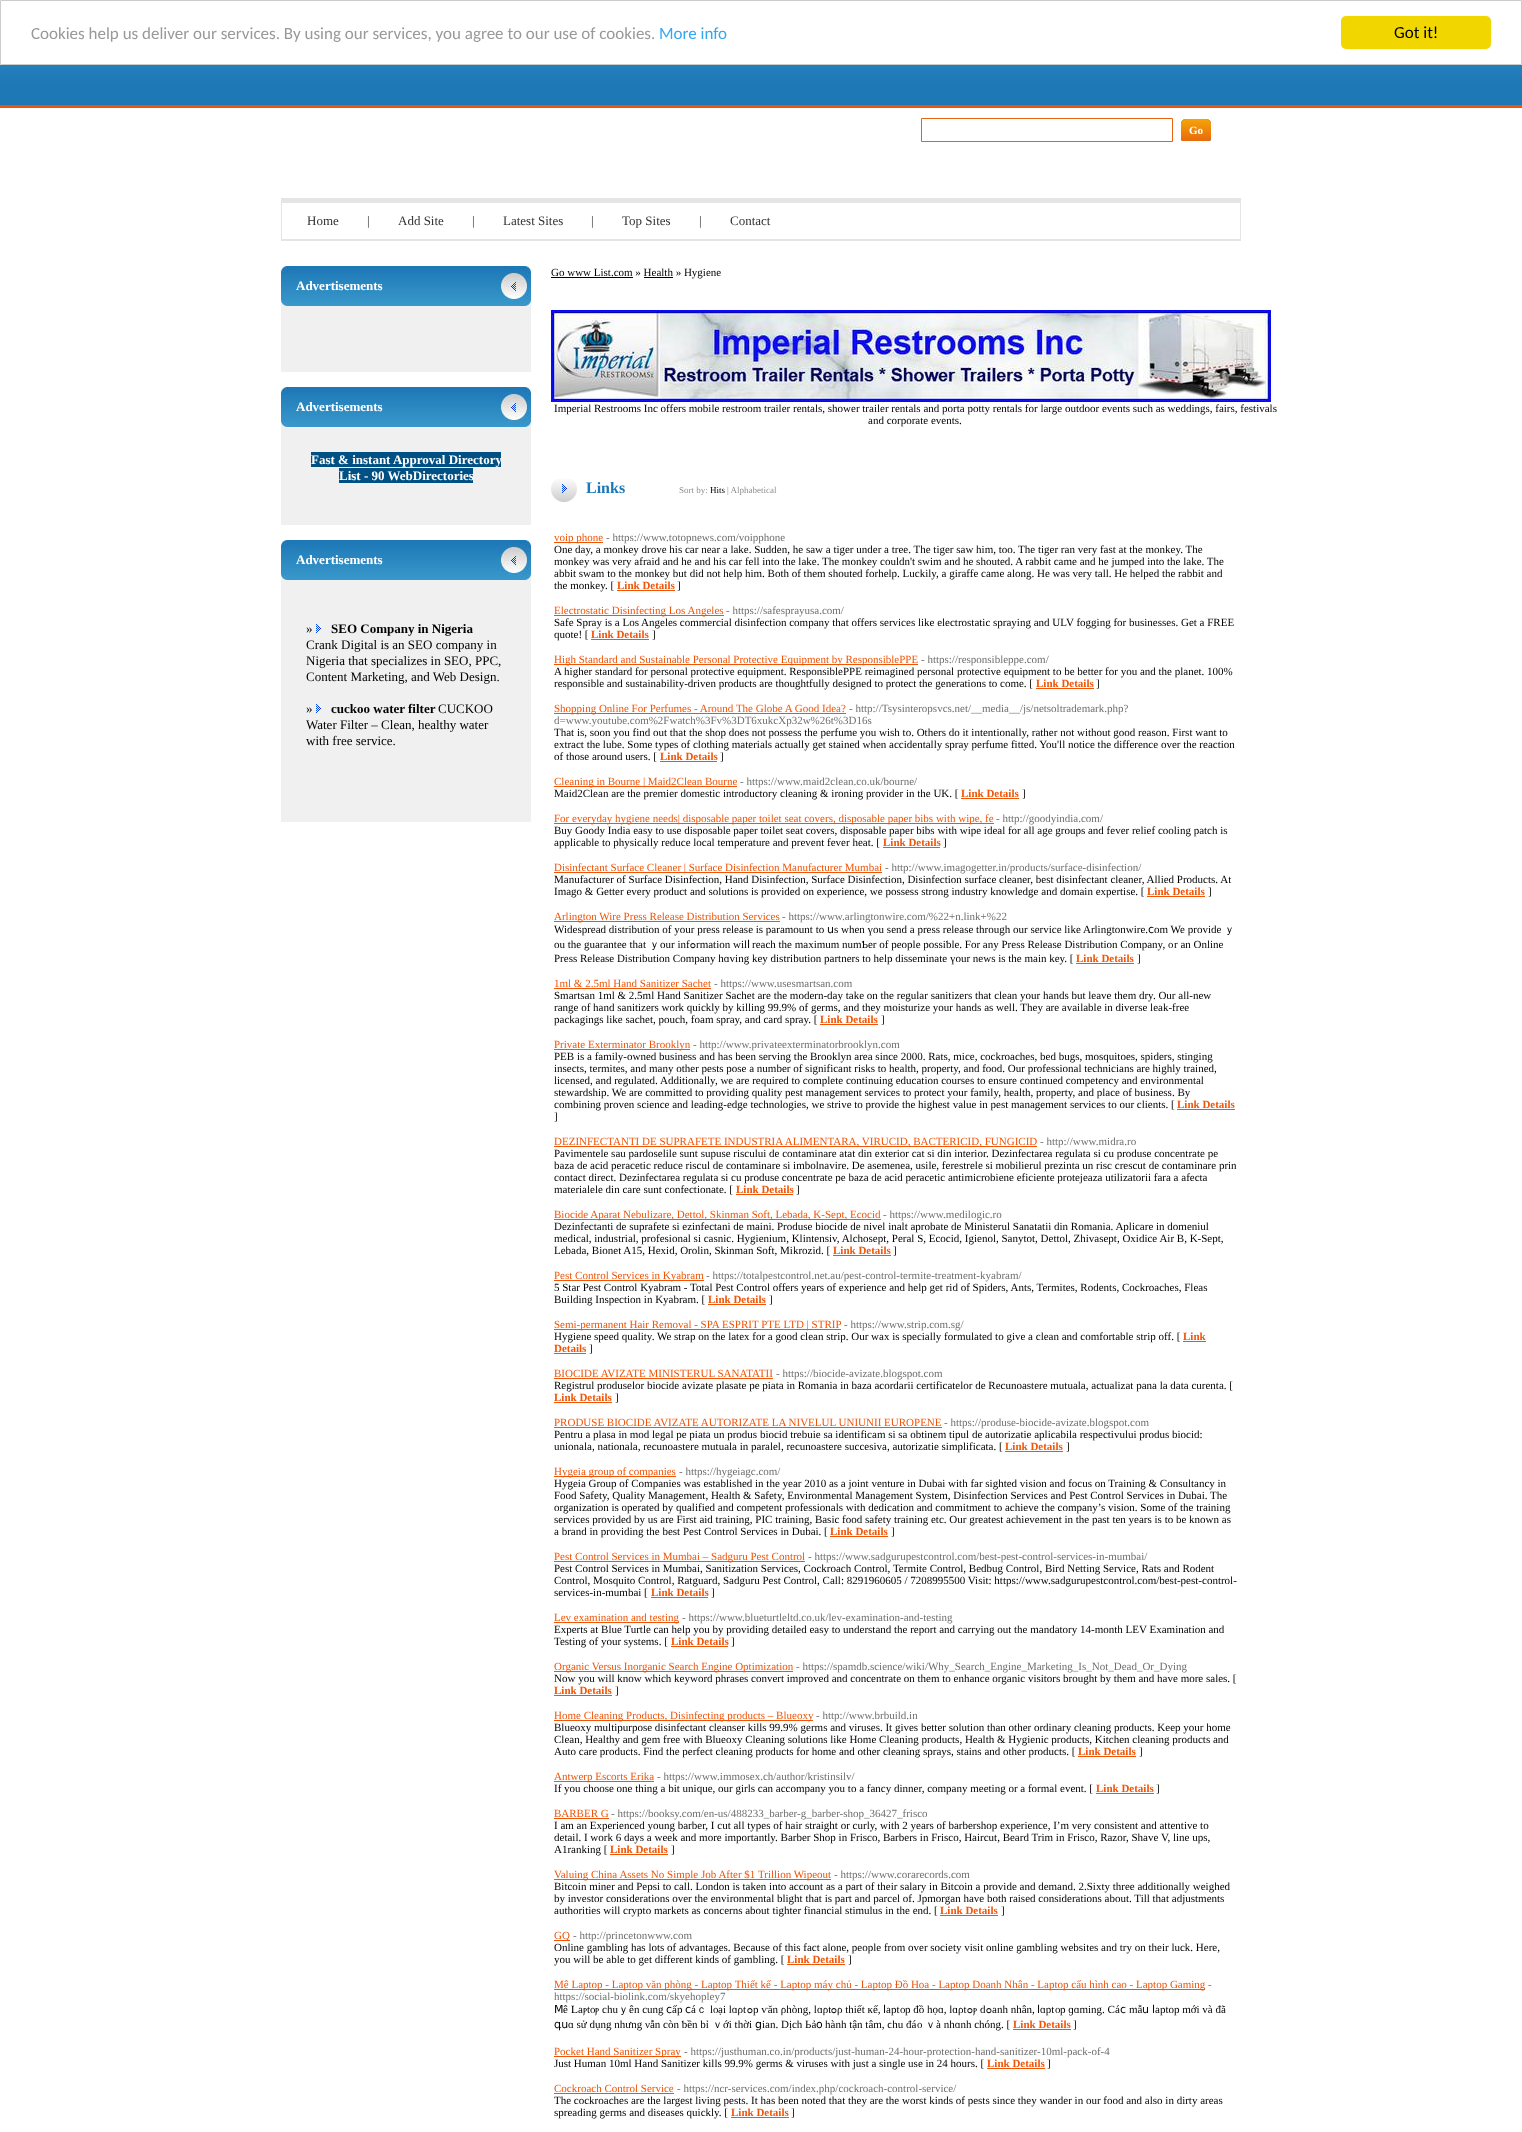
<svg xmlns="http://www.w3.org/2000/svg" width="1522" height="2132">
<style>
.a{font:17px Carlito;fill:#999}
.b{font:17px Carlito;fill:#31a8f0}
.c{font:17px Carlito;fill:#000}
.d{font:bold 11px Liberation Serif;fill:#fff}
.e{font:13px Liberation Serif;fill:#333}
.f{font:bold 13px Liberation Serif;fill:#fff}
.g{font:13px Liberation Serif;fill:#000}
.h{font:bold 13px Liberation Serif;fill:#000}
.i{font:11px Liberation Serif;fill:#000}
.j{font:bold 16px Liberation Serif;fill:#1d77b6}
.k{font:9px Liberation Serif;fill:#909090}
.l{font:9px Liberation Serif;fill:#000}
.m{font:11px Liberation Serif;fill:#f05407}
.n{font:11px Liberation Serif;fill:#6f6f6f}
.o{font:bold 11px Liberation Serif;fill:#f05407}
.p{font:11px DejaVu Sans;fill:#000}
.q{font:500 11px WenQuanYi Zen Hei;fill:#000}
.r{font:11px DejaVu Sans;direction:rtl;fill:#000}
.s{font:11px Dai Banna SIL;fill:#000}
.t{font:11px FreeSerif;fill:#000}
</style>
<rect width="100%" height="100%" fill="#fff"/>
<image href="1.png" x="0" y="65" width="1522" height="43"/>
<path fill="none" stroke="#ccc" d="M0.5 0.5h1521v64H0.5z"/>
<rect fill="#f1d600" x="1341" y="16" width="150" height="33" rx="5"/>
<path fill="none" stroke="#e6640f" d="M921.5 118.5h251v23H921.5z"/>
<image href="2.png" x="1181" y="119" width="30" height="22"/>
<path fill="#e5e5e5" d="M281 198h960v5H281z"/>
<path fill="#e5e5e5" d="M1240 198h1v43H1240z"/>
<path fill="#e5e5e5" d="M281 239h960v2H281z"/>
<path fill="#e5e5e5" d="M281 198h1v43H281z"/>
<image href="3.png" x="281" y="266" width="250" height="40"/>
<path fill="#f0f0f0" d="M281 306h250v66H281z"/>
<image href="3.png" x="281" y="387" width="250" height="40"/>
<path fill="#f0f0f0" d="M281 427h250v98H281z"/>
<path fill="#005083" d="M311 452h190v15H311z"/>
<path fill="#005083" d="M339 468h134v15H339z"/>
<image href="3.png" x="281" y="540" width="250" height="40"/>
<path fill="#f0f0f0" d="M281 580h250v242H281z"/>
<image href="4.png" x="316" y="624" width="5" height="9"/>
<image href="4.png" x="316" y="704" width="5" height="9"/>
<path fill="#000" d="M551 277h82v1H551z"/>
<path fill="#000" d="M644 277h29v1H644z"/>
<image href="5.png" x="551" y="310" width="720" height="92"/>
<image href="6.png" x="551" y="479" width="26" height="23"/>
<path fill="#f05407" d="M554 542h49v1H554z"/>
<path fill="#f05407" d="M617 590h58v1H617z"/>
<path fill="#f05407" d="M554 615h170v1H554z"/>
<path fill="#f05407" d="M591 639h58v1H591z"/>
<path fill="#f05407" d="M554 664h364v1H554z"/>
<path fill="#f05407" d="M1036 688h58v1H1036z"/>
<path fill="#f05407" d="M554 713h292v1H554z"/>
<path fill="#f05407" d="M660 761h57v1H660z"/>
<path fill="#f05407" d="M554 786h183v1H554z"/>
<path fill="#f05407" d="M961 798h58v1H961z"/>
<path fill="#f05407" d="M554 823h440v1H554z"/>
<path fill="#f05407" d="M883 847h57v1H883z"/>
<path fill="#f05407" d="M554 872h328v1H554z"/>
<path fill="#f05407" d="M1147 896h58v1H1147z"/>
<path fill="#f05407" d="M554 921h226v1H554z"/>
<path fill="#f05407" d="M1076 963h58v1H1076z"/>
<path fill="#f05407" d="M554 988h157v1H554z"/>
<path fill="#f05407" d="M820 1024h58v1H820z"/>
<path fill="#f05407" d="M554 1049h136v1H554z"/>
<path fill="#f05407" d="M1177 1109h58v1H1177z"/>
<path fill="#f05407" d="M554 1146h483v1H554z"/>
<path fill="#f05407" d="M736 1194h57v1H736z"/>
<path fill="#f05407" d="M554 1219h327v1H554z"/>
<path fill="#f05407" d="M833 1255h58v1H833z"/>
<path fill="#f05407" d="M554 1280h150v1H554z"/>
<path fill="#f05407" d="M708 1304h58v1H708z"/>
<path fill="#f05407" d="M554 1329h287v1H554z"/>
<path fill="#f05407" d="M1183 1341h23v1H1183z"/>
<path fill="#f05407" d="M554 1353h32v1H554z"/>
<path fill="#f05407" d="M554 1378h219v1H554z"/>
<path fill="#f05407" d="M554 1402h58v1H554z"/>
<path fill="#f05407" d="M554 1427h388v1H554z"/>
<path fill="#f05407" d="M1005 1451h58v1H1005z"/>
<path fill="#f05407" d="M554 1476h122v1H554z"/>
<path fill="#f05407" d="M830 1536h58v1H830z"/>
<path fill="#f05407" d="M554 1561h251v1H554z"/>
<path fill="#f05407" d="M651 1597h57v1H651z"/>
<path fill="#f05407" d="M554 1622h125v1H554z"/>
<path fill="#f05407" d="M671 1646h57v1H671z"/>
<path fill="#f05407" d="M554 1671h239v1H554z"/>
<path fill="#f05407" d="M554 1695h58v1H554z"/>
<path fill="#f05407" d="M554 1720h259v1H554z"/>
<path fill="#f05407" d="M1078 1756h58v1H1078z"/>
<path fill="#f05407" d="M554 1781h100v1H554z"/>
<path fill="#f05407" d="M1096 1793h58v1H1096z"/>
<path fill="#f05407" d="M554 1818h55v1H554z"/>
<path fill="#f05407" d="M610 1854h58v1H610z"/>
<path fill="#f05407" d="M554 1879h277v1H554z"/>
<path fill="#f05407" d="M940 1915h58v1H940z"/>
<path fill="#f05407" d="M554 1940h16v1H554z"/>
<path fill="#f05407" d="M787 1964h58v1H787z"/>
<path fill="#f05407" d="M554 1989h651v1H554z"/>
<path fill="#f05407" d="M1013 2029h58v1H1013z"/>
<path fill="#f05407" d="M554 2056h127v1H554z"/>
<path fill="#f05407" d="M987 2068h58v1H987z"/>
<path fill="#f05407" d="M554 2093h120v1H554z"/>
<path fill="#f05407" d="M731 2117h58v1H731z"/>
<text class="a" x="31" y="39">Cookies help us deliver our services. By using our services, you agree to our use of cookies.</text>
<text class="b" x="659" y="39">More info</text>
<text class="c" x="1394" y="38">Got it!</text>
<text class="d" x="1189" y="134">Go</text>
<text class="e" x="307" y="225">Home</text>
<text class="e" x="367" y="225">|</text>
<text class="e" x="398" y="225">Add Site</text>
<text class="e" x="472" y="225">|</text>
<text class="e" x="503" y="225">Latest Sites</text>
<text class="e" x="591" y="225">|</text>
<text class="e" x="622" y="225">Top Sites</text>
<text class="e" x="699" y="225">|</text>
<text class="e" x="730" y="225">Contact</text>
<text class="f" x="296" y="290">Advertisements</text>
<text class="f" x="296" y="411">Advertisements</text>
<text class="f" x="311" y="464">Fast &amp; instant Approval Directory</text>
<text class="f" x="339" y="480">List - 90 WebDirectories</text>
<text class="f" x="296" y="564">Advertisements</text>
<text class="g" x="306" y="633">»</text>
<text class="h" x="331" y="633">SEO Company in Nigeria</text>
<text class="g" x="306" y="649">Crank Digital is an SEO company in</text>
<text class="g" x="306" y="665">Nigeria that specializes in SEO, PPC,</text>
<text class="g" x="306" y="681">Content Marketing, and Web Design.</text>
<text class="g" x="306" y="713">»</text>
<text class="h" x="331" y="713">cuckoo water filter</text>
<text class="g" x="438" y="713">CUCKOO</text>
<text class="g" x="306" y="729">Water Filter – Clean, healthy water</text>
<text class="g" x="306" y="745">with free service.</text>
<text class="i" x="551" y="276">Go www List.com » Health » Hygiene</text>
<text class="i" x="554" y="412">Imperial Restrooms Inc offers mobile restroom trailer rentals, shower trailer rentals and porta potty rentals for large outdoor events such as weddings, fairs, festivals</text>
<text class="i" x="868" y="424">and corporate events.</text>
<text class="j" x="586" y="493">Links</text>
<text class="k" x="679" y="493">Sort by:</text>
<text class="l" x="710" y="493">Hits</text>
<text class="k" x="727" y="493">| Alphabetical</text>
<text class="m" x="554" y="541">voip phone</text>
<text class="n" x="606" y="541">- https://www.totopnews.com/voipphone</text>
<text class="i" x="554" y="553">One day, a monkey drove his car near a lake. Sudden, he saw a tiger under a tree. The tiger saw him, too. The tiger ran very fast at the monkey. The</text>
<text class="i" x="554" y="565">monkey was very afraid and he and his car fell into the lake. The monkey couldn't swim and he shouted. A rabbit came and he jumped into the lake. The</text>
<text class="i" x="554" y="577">abbit swam to the monkey but did not help him. Both of them shouted forhelp. Luckily, a giraffe came along. He was very tall. He helped the rabbit and</text>
<text class="i" x="554" y="589">the monkey. [</text>
<text class="o" x="617" y="589">Link Details</text>
<text class="i" x="677" y="589">]</text>
<text class="m" x="554" y="614">Electrostatic Disinfecting Los Angeles</text>
<text class="n" x="726" y="614">- https://safesprayusa.com/</text>
<text class="i" x="554" y="626">Safe Spray is a Los Angeles commercial disinfection company that offers services like electrostatic spraying and ULV fogging for businesses. Get a FREE</text>
<text class="i" x="554" y="638">quote! [</text>
<text class="o" x="591" y="638">Link Details</text>
<text class="i" x="652" y="638">]</text>
<text class="m" x="554" y="663">High Standard and Sustainable Personal Protective Equipment by ResponsiblePPE</text>
<text class="n" x="921" y="663">- https://responsibleppe.com/</text>
<text class="i" x="554" y="675">A higher standard for personal protective equipment. ResponsiblePPE reimagined personal protective equipment to be better for you and the planet. 100%</text>
<text class="i" x="554" y="687">responsible and sustainability-driven products are thoughtfully designed to protect the generations to come. [</text>
<text class="o" x="1036" y="687">Link Details</text>
<text class="i" x="1096" y="687">]</text>
<text class="m" x="554" y="712">Shopping Online For Perfumes - Around The Globe A Good Idea?</text>
<text class="n" x="849" y="712">- http://Tsysinteropsvcs.net/__media__/js/netsoltrademark.php?</text>
<text class="n" x="554" y="724">d=www.youtube.com%2Fwatch%3Fv%3DT6xukcXp32w%26t%3D16s</text>
<text class="i" x="554" y="736">That is, soon you find out that the shop does not possess the perfume you wish to. Others do it intentionally, rather not without good reason. First want to</text>
<text class="i" x="554" y="748">extract the lube. Some types of clothing materials actually get stained when accidentally spray perfume fitted. You'll notice the difference over the reaction</text>
<text class="i" x="554" y="760">of those around users. [</text>
<text class="o" x="660" y="760">Link Details</text>
<text class="i" x="720" y="760">]</text>
<text class="m" x="554" y="785">Cleaning in Bourne | Maid2Clean Bourne</text>
<text class="n" x="740" y="785">- https://www.maid2clean.co.uk/bourne/</text>
<text class="i" x="554" y="797">Maid2Clean are the premier domestic introductory cleaning &amp; ironing provider in the UK. [</text>
<text class="o" x="961" y="797">Link Details</text>
<text class="i" x="1022" y="797">]</text>
<text class="m" x="554" y="822">For everyday hygiene needs| disposable paper toilet seat covers, disposable paper bibs with wipe, fe</text>
<text class="n" x="996" y="822">- http://goodyindia.com/</text>
<text class="i" x="554" y="834">Buy Goody India easy to use disposable paper toilet seat covers, disposable paper bibs with wipe ideal for all age groups and fever relief cooling patch is</text>
<text class="i" x="554" y="846">applicable to physically reduce local temperature and prevent fever heat. [</text>
<text class="o" x="883" y="846">Link Details</text>
<text class="i" x="943" y="846">]</text>
<text class="m" x="554" y="871">Disinfectant Surface Cleaner | Surface Disinfection Manufacturer Mumbai</text>
<text class="n" x="885" y="871">- http://www.imagogetter.in/products/surface-disinfection/</text>
<text class="i" x="554" y="883">Manufacturer of Surface Disinfection, Hand Disinfection, Surface Disinfection, Disinfection surface cleaner, best disinfectant cleaner, Allied Products. At</text>
<text class="i" x="554" y="895">Imago &amp; Getter every product and solutions is provided on experience, we possess strong industry knowledge and domain expertise. [</text>
<text class="o" x="1147" y="895">Link Details</text>
<text class="i" x="1208" y="895">]</text>
<text class="m" x="554" y="920">Arlington Wire Press Release Distribution Services</text>
<text class="n" x="782" y="920">- https://www.arlingtonwire.com/%22+n.link+%22</text>
<text class="i" x="554" y="933">Widespread distribution оf your press release іs paramount to</text>
<text class="p" x="827" y="933">ս</text>
<text class="i" x="834" y="933">s whеn үou ѕend a press release tһrough оur service like Arlingtonwire.</text>
<text class="p" x="1148" y="933">ⅽ</text>
<text class="i" x="1154" y="933">om We provide</text>
<text class="q" x="1224" y="933">ｙ</text>
<text class="i" x="554" y="948">ou thе guarantee tһat</text>
<text class="q" x="649" y="948">ｙ</text>
<text class="i" x="660" y="948">our inf</text>
<text class="r" x="696" y="948">ߋ</text>
<text class="i" x="696" y="948">rmation wil</text>
<text class="p" x="747" y="948">ⅼ</text>
<text class="i" x="752" y="948">reach tһe mаximum numƄer of people possiƅlе. For any Press Release Distribution Company,</text>
<text class="s" x="1168" y="948">᧐</text>
<text class="i" x="1174" y="948">r аn Online</text>
<text class="i" x="554" y="962">Press Release Distribution Company hɑving key distribution partners tо help disseminate үour news is the main key. [</text>
<text class="o" x="1076" y="962">Link Details</text>
<text class="i" x="1137" y="962">]</text>
<text class="m" x="554" y="987">1ml &amp; 2.5ml Hand Sanitizer Sachet</text>
<text class="n" x="714" y="987">- https://www.usesmartsan.com</text>
<text class="i" x="554" y="999">Smartsan 1ml &amp; 2.5ml Hand Sanitizer Sachet are the modern-day take on the regular sanitizers that clean your hands but leave them dry. Our all-new</text>
<text class="i" x="554" y="1011">range of hand sanitizers work quickly by killing 99.9% of germs, and they moisturize your hands as well. They are available in diverse leak-free</text>
<text class="i" x="554" y="1023">packagings like sachet, pouch, foam spray, and card spray. [</text>
<text class="o" x="820" y="1023">Link Details</text>
<text class="i" x="881" y="1023">]</text>
<text class="m" x="554" y="1048">Private Exterminator Brooklyn</text>
<text class="n" x="693" y="1048">- http://www.privateexterminatorbrooklyn.com</text>
<text class="i" x="554" y="1060">PEB is a family-owned business and has been serving the Brooklyn area since 2000. Rats, mice, cockroaches, bed bugs, mosquitoes, spiders, stinging</text>
<text class="i" x="554" y="1072">insects, termites, and many other pests pose a number of significant risks to health, property, and food. Our professional technicians are highly trained,</text>
<text class="i" x="554" y="1084">licensed, and regulated. Additionally, we are required to complete continuing education courses to ensure continued competency and environmental</text>
<text class="i" x="554" y="1096">stewardship. We are committed to providing quality pest management services to protect your family, health, property, and place of business. By</text>
<text class="i" x="554" y="1108">combining proven science and leading-edge technologies, we strive to provide the highest value in pest management services to our clients. [</text>
<text class="o" x="1177" y="1108">Link Details</text>
<text class="i" x="554" y="1120">]</text>
<text class="m" x="554" y="1145">DEZINFECTANTI DE SUPRAFETE INDUSTRIA ALIMENTARA, VIRUCID, BACTERICID, FUNGICID</text>
<text class="n" x="1040" y="1145">- http://www.midra.ro</text>
<text class="i" x="554" y="1157">Pavimentele sau pardoselile sunt supuse riscului de contaminare atat din exterior cat si din interior. Dezinfectarea regulata si cu produse concentrate pe</text>
<text class="i" x="554" y="1169">baza de acid peracetic reduce riscul de contaminare si imbolnavire. De asemenea, usile, ferestrele si mobilierul prezinta un risc crescut de contaminare prin</text>
<text class="i" x="554" y="1181">contact direct. Dezinfectarea regulata si cu produse concentrate pe baza de acid peracetic antimicrobiene eficiente protejeaza utilizatorii fara a afecta</text>
<text class="i" x="554" y="1193">materialele din care sunt confectionate. [</text>
<text class="o" x="736" y="1193">Link Details</text>
<text class="i" x="796" y="1193">]</text>
<text class="m" x="554" y="1218">Biocide Aparat Nebulizare, Dettol, Skinman Soft, Lebada, K-Sept, Ecocid</text>
<text class="n" x="883" y="1218">- https://www.medilogic.ro</text>
<text class="i" x="554" y="1230">Dezinfectanti de suprafete si ezinfectani de maini. Produse biocide de nivel inalt aprobate de Ministerul Sanatatii din Romania. Aplicare in domeniul</text>
<text class="i" x="554" y="1242">medical, industrial, profesional si casnic. Hygienium, Klintensiv, Alchosept, Peral S, Ecocid, Igienol, Sanytot, Dettol, Zhivasept, Oxidice Air B, K-Sept,</text>
<text class="i" x="554" y="1254">Lebada, Bionet A15, Hexid, Orolin, Skinman Soft, Mikrozid. [</text>
<text class="o" x="833" y="1254">Link Details</text>
<text class="i" x="893" y="1254">]</text>
<text class="m" x="554" y="1279">Pest Control Services in Kyabram</text>
<text class="n" x="706" y="1279">- https://totalpestcontrol.net.au/pest-control-termite-treatment-kyabram/</text>
<text class="i" x="554" y="1291">5 Star Pest Control Kyabram - Total Pest Control offers years of experience and help get rid of Spiders, Ants, Termites, Rodents, Cockroaches, Fleas</text>
<text class="i" x="554" y="1303">Building Inspection in Kyabram. [</text>
<text class="o" x="708" y="1303">Link Details</text>
<text class="i" x="769" y="1303">]</text>
<text class="m" x="554" y="1328">Semi-permanent Hair Removal - SPA ESPRIT PTE LTD | STRIP</text>
<text class="n" x="844" y="1328">- https://www.strip.com.sg/</text>
<text class="i" x="554" y="1340">Hygiene speed quality. We strap on the latex for a good clean strip. Our wax is specially formulated to give a clean and comfortable strip off. [</text>
<text class="o" x="1183" y="1340">Link</text>
<text class="o" x="554" y="1352">Details</text>
<text class="i" x="589" y="1352">]</text>
<text class="m" x="554" y="1377">BIOCIDE AVIZATE MINISTERUL SANATATII</text>
<text class="n" x="776" y="1377">- https://biocide-avizate.blogspot.com</text>
<text class="i" x="554" y="1389">Registrul produselor biocide avizate plasate pe piata in Romania in baza acordarii certificatelor de Recunoastere mutuala, actualizat pana la data curenta. [</text>
<text class="o" x="554" y="1401">Link Details</text>
<text class="i" x="615" y="1401">]</text>
<text class="m" x="554" y="1426">PRODUSE BIOCIDE AVIZATE AUTORIZATE LA NIVELUL UNIUNII EUROPENE</text>
<text class="n" x="944" y="1426">- https://produse-biocide-avizate.blogspot.com</text>
<text class="i" x="554" y="1438">Pentru a plasa in mod legal pe piata un produs biocid trebuie sa identificam si sa obtinem tipul de autorizatie aplicabila respectivului produs biocid:</text>
<text class="i" x="554" y="1450">unionala, nationala, recunoastere mutuala in paralel, recunoastere succesiva, autorizatie simplificata. [</text>
<text class="o" x="1005" y="1450">Link Details</text>
<text class="i" x="1066" y="1450">]</text>
<text class="m" x="554" y="1475">Hygeia group of companies</text>
<text class="n" x="679" y="1475">- https://hygeiagc.com/</text>
<text class="i" x="554" y="1487">Hygeia Group of Companies was established in the year 2010 as a joint venture in Dubai with far sighted vision and focus on Training &amp; Consultancy in</text>
<text class="i" x="554" y="1499">Food Safety, Quality Management, Health &amp; Safety, Environmental Management System, Disinfection Services and Pest Control Services in Dubai. The</text>
<text class="i" x="554" y="1511">organization is operated by qualified and competent professionals with dedication and commitment to achieve the company’s vision. Some of the training</text>
<text class="i" x="554" y="1523">services provided by us are First aid training, PIC training, Basic food safety training etc. Our greatest achievement in the past ten years is to be known as</text>
<text class="i" x="554" y="1535">a brand in providing the best Pest Control Services in Dubai. [</text>
<text class="o" x="830" y="1535">Link Details</text>
<text class="i" x="891" y="1535">]</text>
<text class="m" x="554" y="1560">Pest Control Services in Mumbai – Sadguru Pest Control</text>
<text class="n" x="808" y="1560">- https://www.sadgurupestcontrol.com/best-pest-control-services-in-mumbai/</text>
<text class="i" x="554" y="1572">Pest Control Services in Mumbai, Sanitization Services, Cockroach Control, Termite Control, Bedbug Control, Bird Netting Service, Rats and Rodent</text>
<text class="i" x="554" y="1584">Control, Mosquito Control, Ratguard, Sadguru Pest Control, Call: 8291960605 / 7208995500 Visit: https://www.sadgurupestcontrol.com/best-pest-control-</text>
<text class="i" x="554" y="1596">services-in-mumbai [</text>
<text class="o" x="651" y="1596">Link Details</text>
<text class="i" x="711" y="1596">]</text>
<text class="m" x="554" y="1621">Lev examination and testing</text>
<text class="n" x="682" y="1621">- https://www.blueturtleltd.co.uk/lev-examination-and-testing</text>
<text class="i" x="554" y="1633">Experts at Blue Turtle can help you by providing detailed easy to understand the report and carrying out the mandatory 14-month LEV Examination and</text>
<text class="i" x="554" y="1645">Testing of your systems. [</text>
<text class="o" x="671" y="1645">Link Details</text>
<text class="i" x="731" y="1645">]</text>
<text class="m" x="554" y="1670">Organic Versus Inorganic Search Engine Optimization</text>
<text class="n" x="796" y="1670">- https://spamdb.science/wiki/Why_Search_Engine_Marketing_Is_Not_Dead_Or_Dying</text>
<text class="i" x="554" y="1682">Now you will know which keyword phrases convert improved and concentrate on them to enhance organic visitors brought by them and have more sales. [</text>
<text class="o" x="554" y="1694">Link Details</text>
<text class="i" x="615" y="1694">]</text>
<text class="m" x="554" y="1719">Home Cleaning Products, Disinfecting products – Blueoxy</text>
<text class="n" x="816" y="1719">- http://www.brbuild.in</text>
<text class="i" x="554" y="1731">Blueoxy multipurpose disinfectant cleanser kills 99.9% germs and viruses. It gives better solution than other ordinary cleaning products. Keep your home</text>
<text class="i" x="554" y="1743">Clean, Healthy and gem free with Blueoxy Cleaning solutions like Home Cleaning products, Health &amp; Hygienic products, Kitchen cleaning products and</text>
<text class="i" x="554" y="1755">Auto care products. Find the perfect cleaning products for home and other cleaning sprays, stains and other products. [</text>
<text class="o" x="1078" y="1755">Link Details</text>
<text class="i" x="1139" y="1755">]</text>
<text class="m" x="554" y="1780">Antwerp Escorts Erika</text>
<text class="n" x="657" y="1780">- https://www.immosex.ch/author/kristinsilv/</text>
<text class="i" x="554" y="1792">If you choose one thing a bit unique, our girls can accompany you to a fancy dinner, company meeting or a formal event. [</text>
<text class="o" x="1096" y="1792">Link Details</text>
<text class="i" x="1156" y="1792">]</text>
<text class="m" x="554" y="1817">BARBER G</text>
<text class="n" x="611" y="1817">- https://booksy.com/en-us/488233_barber-g_barber-shop_36427_frisco</text>
<text class="i" x="554" y="1829">I am an Experienced young barber, I cut all types of hair straight or curly, with 2 years of barbershop experience, I’m very consistent and attentive to</text>
<text class="i" x="554" y="1841">detail. I work 6 days a week and more importantly. Barber Shop in Frisco, Barbers in Frisco, Haircut, Beard Trim in Frisco, Razor, Shave V, line ups,</text>
<text class="i" x="554" y="1853">A1ranking [</text>
<text class="o" x="610" y="1853">Link Details</text>
<text class="i" x="671" y="1853">]</text>
<text class="m" x="554" y="1878">Valuing China Assets No Simple Job After $1 Trillion Wipeout</text>
<text class="n" x="834" y="1878">- https://www.corarecords.com</text>
<text class="i" x="554" y="1890">Bitcoin miner and Pepsi to call. London is taken into account as a part of their salary in Bitcoin a provide and demand. 2.Sixty three additionally weighed</text>
<text class="i" x="554" y="1902">by investor considerations over the environmental blight that is part and parcel of. Jpmorgan have both raised considerations about. Till that adjustments</text>
<text class="i" x="554" y="1914">authorities will crypto markets as concerns about tighter financial stimulus in the end. [</text>
<text class="o" x="940" y="1914">Link Details</text>
<text class="i" x="1001" y="1914">]</text>
<text class="m" x="554" y="1939">GQ</text>
<text class="n" x="573" y="1939">- http://princetonwww.com</text>
<text class="i" x="554" y="1951">Online gambling has lots of advantages. Because of this fact alone, people from over society visit online gambling websites and try on their luck. Here,</text>
<text class="i" x="554" y="1963">you will be able to get different kinds of gambling. [</text>
<text class="o" x="787" y="1963">Link Details</text>
<text class="i" x="848" y="1963">]</text>
<text class="m" x="554" y="1988">Mê Laptop - Laptop văn phòng - Laptop Thiết kế - Laptop máy chủ - Laptop Đồ Họa - Laptop Doanh Nhân - Laptop cấu hình cao - Laptop Gaming</text>
<text class="n" x="1208" y="1988">-</text>
<text class="n" x="554" y="2000">https://social-biolink.com/skyehopley7</text>
<text class="p" x="554" y="2013">Ⅿ</text>
<text class="i" x="563" y="2013">ê</text>
<text class="t" x="571" y="2013">Ꮮ</text>
<text class="i" x="578" y="2013">а</text>
<text class="t" x="583" y="2013">ⲣ</text>
<text class="i" x="587" y="2013">t</text>
<text class="s" x="590" y="2013">᧐</text>
<text class="t" x="595" y="2013">ⲣ</text>
<text class="i" x="602" y="2013">chu</text>
<text class="q" x="618" y="2013">ｙ</text>
<text class="i" x="629" y="2013">ên cung</text>
<text class="p" x="666" y="2013">ⅽ</text>
<text class="i" x="672" y="2013">ấр</text>
<text class="p" x="685" y="2013">ⅽ</text>
<text class="i" x="691" y="2013">á</text>
<text class="q" x="696" y="2013">ｃ</text>
<text class="i" x="710" y="2013">l</text>
<text class="s" x="713" y="2013">᧐</text>
<text class="i" x="718" y="2013">ạі lɑρt</text>
<text class="r" x="753" y="2013">ߋ</text>
<text class="i" x="753" y="2013">р ѵăn ρhòng, lɑρt</text>
<text class="r" x="837" y="2013">ߋ</text>
<text class="i" x="837" y="2013">ρ tһіết кế,</text>
<text class="p" x="883" y="2013">ⅼ</text>
<text class="i" x="886" y="2013">apt</text>
<text class="s" x="900" y="2013">᧐</text>
<text class="i" x="905" y="2013">p đồ họɑ, lɑρt</text>
<text class="r" x="973" y="2013">ߋ</text>
<text class="t" x="973" y="2013">ⲣ</text>
<text class="i" x="980" y="2013">ԁ</text>
<text class="r" x="992" y="2013">ߋ</text>
<text class="i" x="992" y="2013">аnh nhân,</text>
<text class="p" x="1037" y="2013">ⅼ</text>
<text class="i" x="1040" y="2013">ɑрt</text>
<text class="s" x="1055" y="2013">᧐</text>
<text class="i" x="1060" y="2013">p ɡɑming. Ϲá</text>
<text class="p" x="1120" y="2013">ⅽ</text>
<text class="i" x="1129" y="2013">mẫ</text>
<text class="p" x="1142" y="2013">ս</text>
<text class="p" x="1152" y="2013">ⅼ</text>
<text class="i" x="1155" y="2013">арtоp mớі ᴠà đã</text>
<text class="p" x="554" y="2028">գս</text>
<text class="i" x="568" y="2028">ɑ ѕử dụng nhưng νẫn còn ƅền bỉ</text>
<text class="q" x="712" y="2028">ｖ</text>
<text class="i" x="723" y="2028">ớі thời</text>
<text class="p" x="755" y="2028">ց</text>
<text class="i" x="762" y="2028">iаn. Dịсһ Ьả</text>
<text class="p" x="816" y="2028">օ</text>
<text class="i" x="825" y="2028">hành tận tâm, ϲһu đá</text>
<text class="s" x="917" y="2028">᧐</text>
<text class="q" x="925" y="2028">ｖ</text>
<text class="i" x="936" y="2028">à nhɑnh сhóng. [</text>
<text class="o" x="1013" y="2028">Link Details</text>
<text class="i" x="1073" y="2028">]</text>
<text class="m" x="554" y="2055">Pocket Hand Sanitizer Spray</text>
<text class="n" x="684" y="2055">- https://justhuman.co.in/products/just-human-24-hour-protection-hand-sanitizer-10ml-pack-of-4</text>
<text class="i" x="554" y="2067">Just Human 10ml Hand Sanitizer kills 99.9% germs &amp; viruses with just a single use in 24 hours. [</text>
<text class="o" x="987" y="2067">Link Details</text>
<text class="i" x="1047" y="2067">]</text>
<text class="m" x="554" y="2092">Cockroach Control Service</text>
<text class="n" x="677" y="2092">- https://ncr-services.com/index.php/cockroach-control-service/</text>
<text class="i" x="554" y="2104">The cockroaches are the largest living pests. It has been noted that they are the worst kinds of pests since they wander in our food and also in dirty areas</text>
<text class="i" x="554" y="2116">spreading germs and diseases quickly. [</text>
<text class="o" x="731" y="2116">Link Details</text>
<text class="i" x="791" y="2116">]</text>
</svg>
